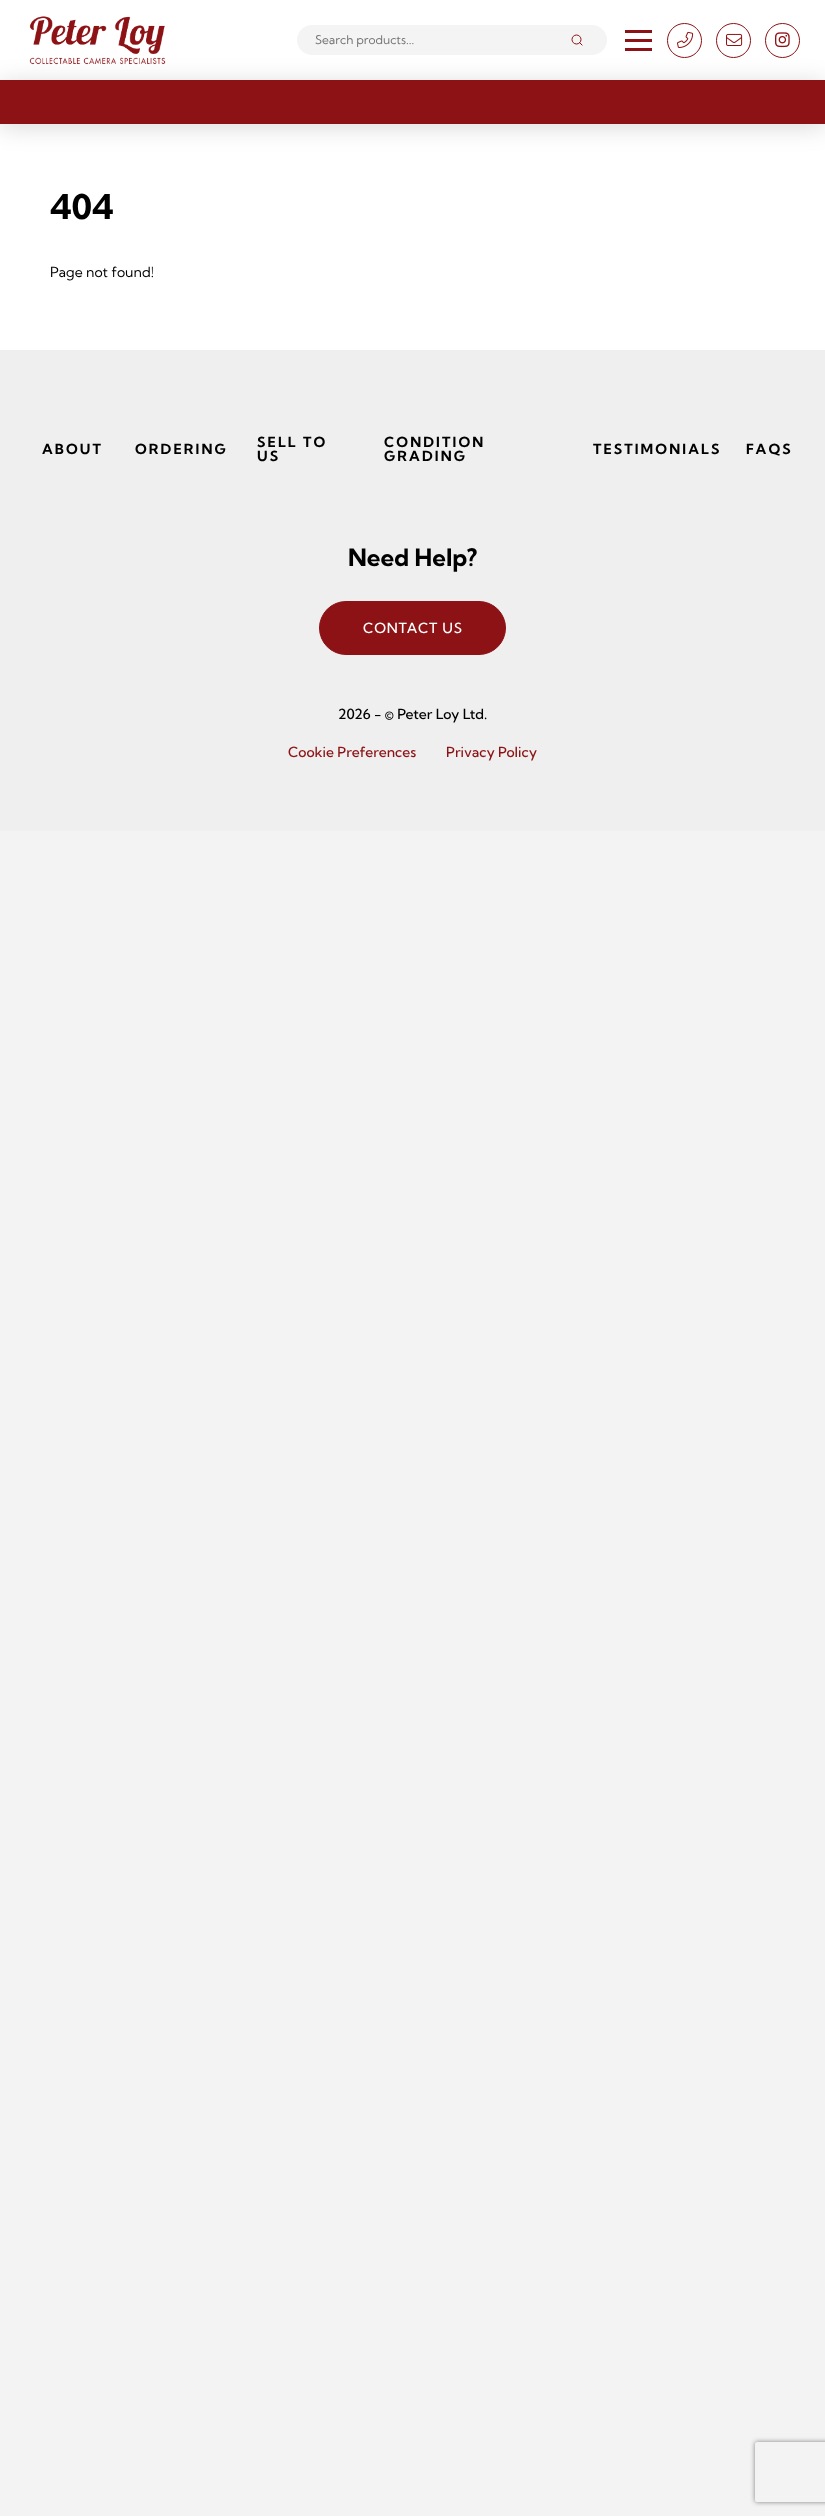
<svg xmlns="http://www.w3.org/2000/svg" width="825" height="2516">
<style>
.a{font:12px Kumbh Sans;fill:#757575}
.b{font:bold 34px Kumbh Sans;fill:#000}
.c{font:14px Kumbh Sans;fill:#000}
.d{font:bold 14px Kumbh Sans;letter-spacing:2.1px;fill:#000}
.e{font:bold 24px Kumbh Sans;fill:#000}
.f{font:500 14px Kumbh Sans;letter-spacing:0.75px;fill:#fff}
.g{font:500 14px Kumbh Sans;fill:#000}
.h{font:500 14px Kumbh Sans;fill:#8d1215}
</style>
<defs>
<clipPath id="clip1"><path d="M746 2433h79v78h-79zm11 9h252c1 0 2 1 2 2v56c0 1-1 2-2 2h-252c-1 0-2-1-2-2v-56c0-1 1-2 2-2z" clip-rule="evenodd"/></clipPath>
</defs>
<rect width="100%" height="100%" fill="#f3f3f3"/>
<path fill="#fff" d="M0 0h825v80H0z"/>
<image href="1.png" x="29" y="16" width="137" height="49"/>
<rect fill="#f4f4f4" x="297" y="25" width="310" height="30" rx="15"/>
<circle fill="none" stroke="#8d1215" cx="576.5" cy="39.5" r="4.5"/>
<path fill="none" stroke="#8d1215" stroke-linecap="square" d="M582 45l-2.5-2.5"/>
<path fill="#8d1215" d="M625 30h27v3H625z"/>
<path fill="#8d1215" d="M625 39h27v3H625z"/>
<path fill="#8d1215" d="M625 48h27v3H625z"/>
<circle fill="none" stroke="#8d1215" cx="684.5" cy="40.5" r="17"/>
<image href="2.png" x="677" y="31" width="17" height="17"/>
<circle fill="none" stroke="#8d1215" cx="733.5" cy="40.5" r="17"/>
<image href="3.png" x="726" y="33" width="17" height="13"/>
<circle fill="none" stroke="#8d1215" cx="782.5" cy="40.5" r="17"/>
<image href="4.png" x="775" y="32" width="15" height="16"/>
<path fill="#fff" d="M0 124h825v226H0z"/>
<path fill="#00000026" filter="blur(12.5px)" d="M0 83h825v44H0z"/>
<path fill="#8d1215" d="M0 80h825v44H0z"/>
<path fill="#efefef" d="M0 350h825v481H0z"/>
<rect fill="#8d1215" stroke="#8d1215" x="319.5" y="601.5" width="186" height="53" rx="26.5"/>
<g clip-path="url(#clip1)">
<rect fill="#808080" filter="blur(2.5px)" x="755" y="2442" width="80" height="60" rx="2"/>
</g>
<text class="a" x="315" y="44">Search products...</text>
<text class="b" x="50" y="219">404</text>
<text class="c" x="50" y="277">Page not found!</text>
<text class="d" x="42" y="454">ABOUT</text>
<text class="d" x="135" y="454">ORDERING</text>
<text class="d" x="257" y="447">SELL TO</text>
<text class="d" x="257" y="461">US</text>
<text class="d" x="384" y="447">CONDITION</text>
<text class="d" x="384" y="461">GRADING</text>
<text class="d" x="593" y="454">TESTIMONIALS</text>
<text class="d" x="746" y="454">FAQS</text>
<text class="e" x="348" y="566">Need Help?</text>
<text class="f" x="363" y="633">CONTACT US</text>
<text class="g" x="338" y="719">2026 - © Peter Loy Ltd.</text>
<text class="h" x="288" y="757">Cookie Preferences</text>
<text class="h" x="446" y="757">Privacy Policy</text>
</svg>
